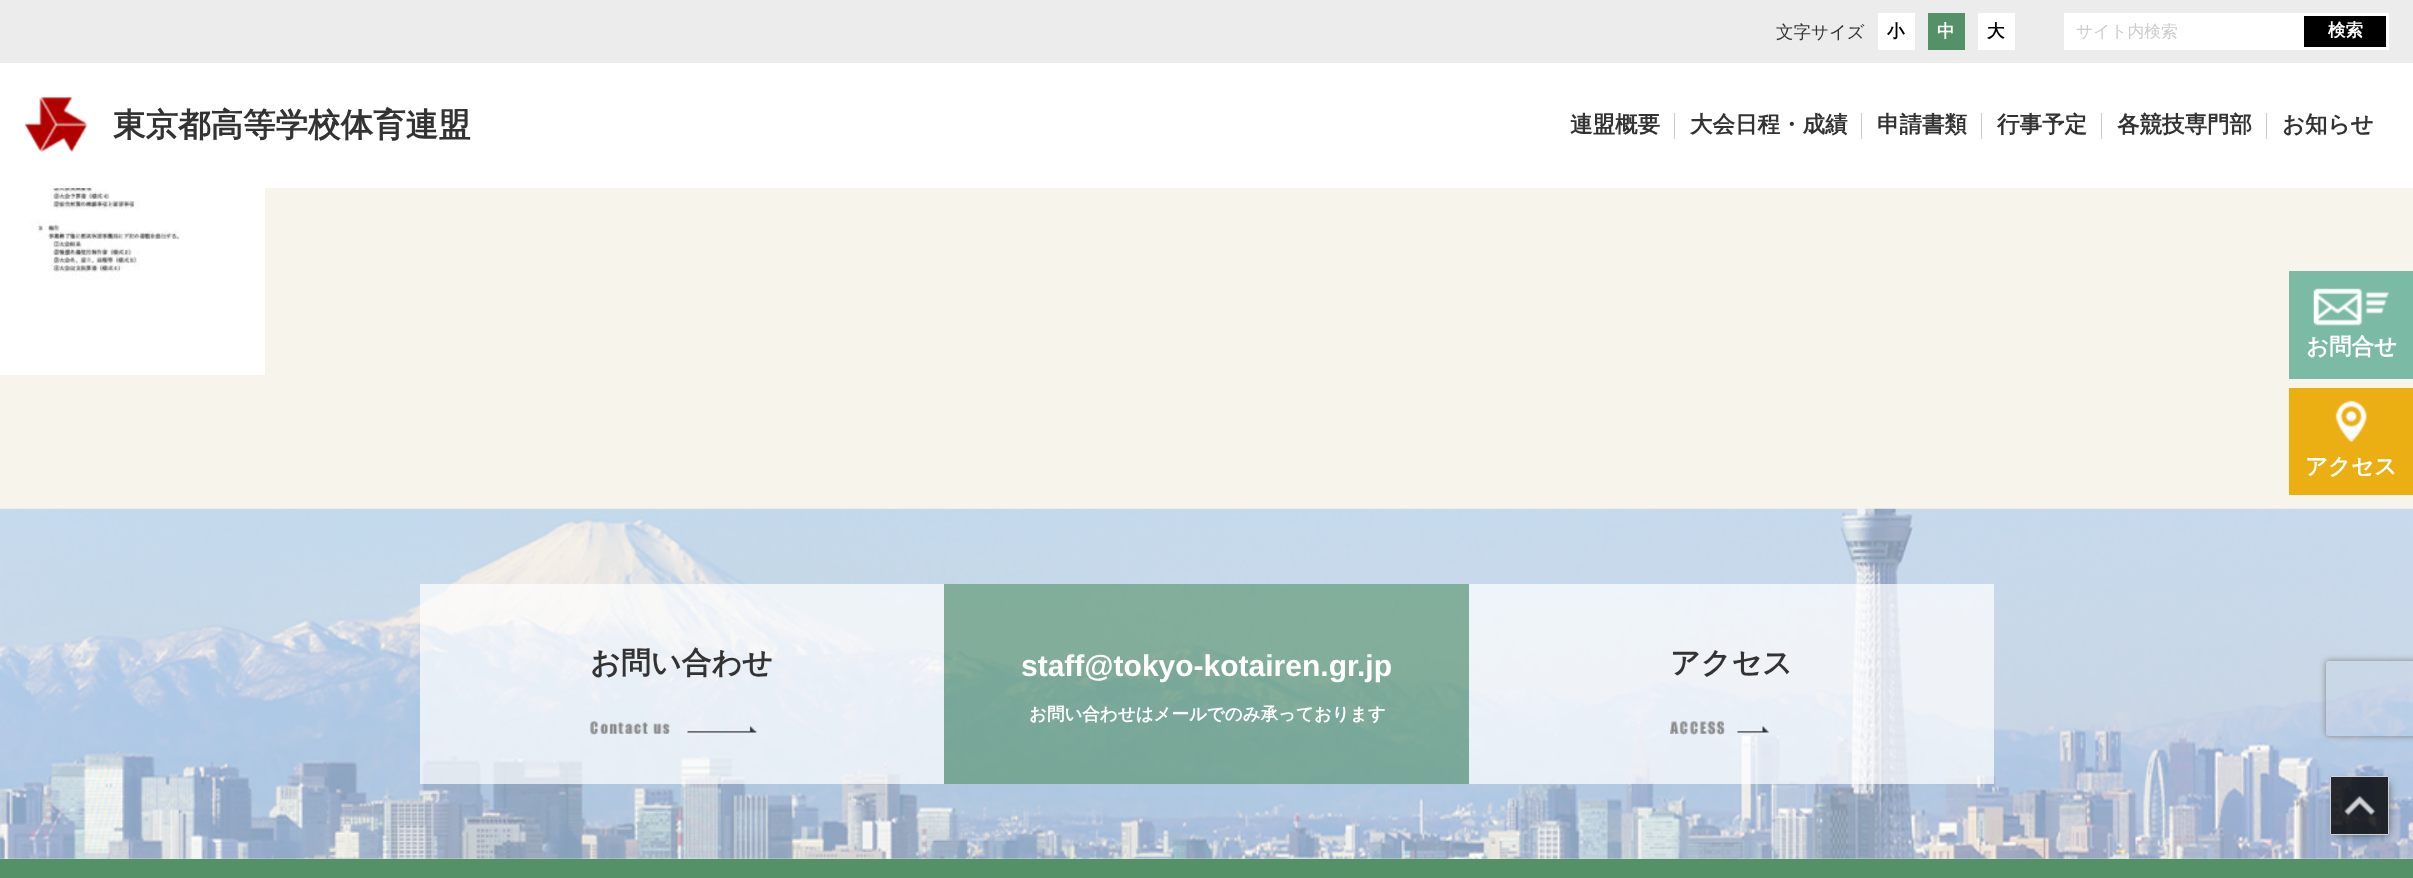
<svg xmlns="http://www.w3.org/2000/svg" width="2413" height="878">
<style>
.a{font:500 17.5px WenQuanYi Zen Hei;fill:#333}
.b{font:bold 17.5px WenQuanYi Zen Hei;fill:#000}
.c{font:bold 17.5px WenQuanYi Zen Hei;fill:#fff}
.d{font:500 16.75px WenQuanYi Zen Hei;fill:#ccc}
.e{font:bold 32.5px WenQuanYi Zen Hei;fill:#333}
.f{font:bold 22.5px WenQuanYi Zen Hei;fill:#333}
.g{font:bold 22.5px WenQuanYi Zen Hei;fill:#fff}
.h{font:bold 30px WenQuanYi Zen Hei;fill:#333}
.i{font:bold 30px Liberation Sans;fill:#fff}
</style>
<defs>
<clipPath id="clip1"><path d="M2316 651h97v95h-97zm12.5 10h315c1.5 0 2.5 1 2.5 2.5v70c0 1.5-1 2.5-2.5 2.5h-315c-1.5 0-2.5-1-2.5-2.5v-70c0-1.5 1-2.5 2.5-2.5z" clip-rule="evenodd"/></clipPath>
<clipPath id="clip2"><path d="M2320 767h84v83h-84zm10 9h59v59h-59z" clip-rule="evenodd"/></clipPath>
</defs>
<rect width="100%" height="100%" fill="#f7f4ec"/>
<path fill="#ececec" d="M0 0h2413v63H0z"/>
<path fill="#fff" d="M1878 13h37v37H1878z"/>
<path fill="#549167" d="M1928 13h37v37H1928z"/>
<path fill="#fff" d="M1978 13h37v37H1978z"/>
<path fill="#fff" d="M2064 13h237v37H2064z"/>
<path fill="#000" stroke="#fff" stroke-width="3" d="M2302.5 14.5h85v34H2302.5z"/>
<path fill="#fff" d="M0 63h2413v125H0z"/>
<image href="1.png" x="25" y="97" width="63" height="56"/>
<path fill="#ccc" d="M1674 113h1v26H1674z"/>
<path fill="#ccc" d="M1861 113h1v26H1861z"/>
<path fill="#ccc" d="M1981 113h1v26H1981z"/>
<path fill="#ccc" d="M2101 113h1v26H2101z"/>
<path fill="#ccc" d="M2266 113h1v26H2266z"/>
<image href="2.png" x="0" y="188" width="265" height="187"/>
<path fill="#7bbaa5" d="M2289 271h124v108H2289z"/>
<image href="3.png" x="2313" y="288" width="76" height="38"/>
<path fill="#ebaf14" d="M2289 388h124v107H2289z"/>
<image href="4.png" x="2335" y="400" width="32" height="42"/>
<image href="5.png" x="0" y="508" width="2413" height="351"/>
<path fill="#ffffffb3" d="M420 584h524v200H420z"/>
<image href="6.png" x="590" y="721" width="167" height="14"/>
<path fill="#54916799" d="M944 584h525v200H944z"/>
<path fill="#ffffffb3" d="M1469 584h525v200H1469z"/>
<image href="7.png" x="1670" y="721" width="99" height="14"/>
<g clip-path="url(#clip1)">
<rect fill="#808080" filter="blur(3px)" x="2326" y="661" width="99" height="75" rx="2.5"/>
</g>
<g clip-path="url(#clip2)">
<path fill="#333333cc" filter="blur(5px)" d="M2336 783h52v51H2336z"/>
</g>
<path fill="#000000cc" d="M2330 776h59v59H2330z"/>
<path fill="none" stroke="#ffffffcc" d="M2330.5 776.5h58v58H2330.5z"/>
<image href="8.png" x="2344" y="796" width="32" height="20"/>
<path fill="#549167" d="M0 859h2413v19H0z"/>
<text class="a" x="1776" y="38">文字サイズ</text>
<text class="b" x="1887" y="37">小</text>
<text class="c" x="1937" y="37">中</text>
<text class="b" x="1987" y="37">大</text>
<text class="d" x="2076" y="37">サイト内検索</text>
<text class="c" x="2328" y="36">検索</text>
<text class="e" x="113" y="136">東京都高等学校体育連盟</text>
<text class="f" x="1570" y="132">連盟概要</text>
<text class="f" x="1690" y="132">大会日程・成績</text>
<text class="f" x="1877" y="132">申請書類</text>
<text class="f" x="1997" y="132">行事予定</text>
<text class="f" x="2117" y="132">各競技専門部</text>
<text class="f" x="2282" y="132">お知らせ</text>
<text class="g" x="2306" y="354">お問合せ</text>
<text class="g" x="2305" y="474">アクセス</text>
<text class="h" x="590" y="673">お問い合わせ</text>
<text class="i" x="1021" y="676">staff@tokyo-kotairen.gr.jp</text>
<text class="c" x="1029" y="720">お問い合わせはメールでのみ承っております</text>
<text class="h" x="1670" y="673">アクセス</text>
</svg>
